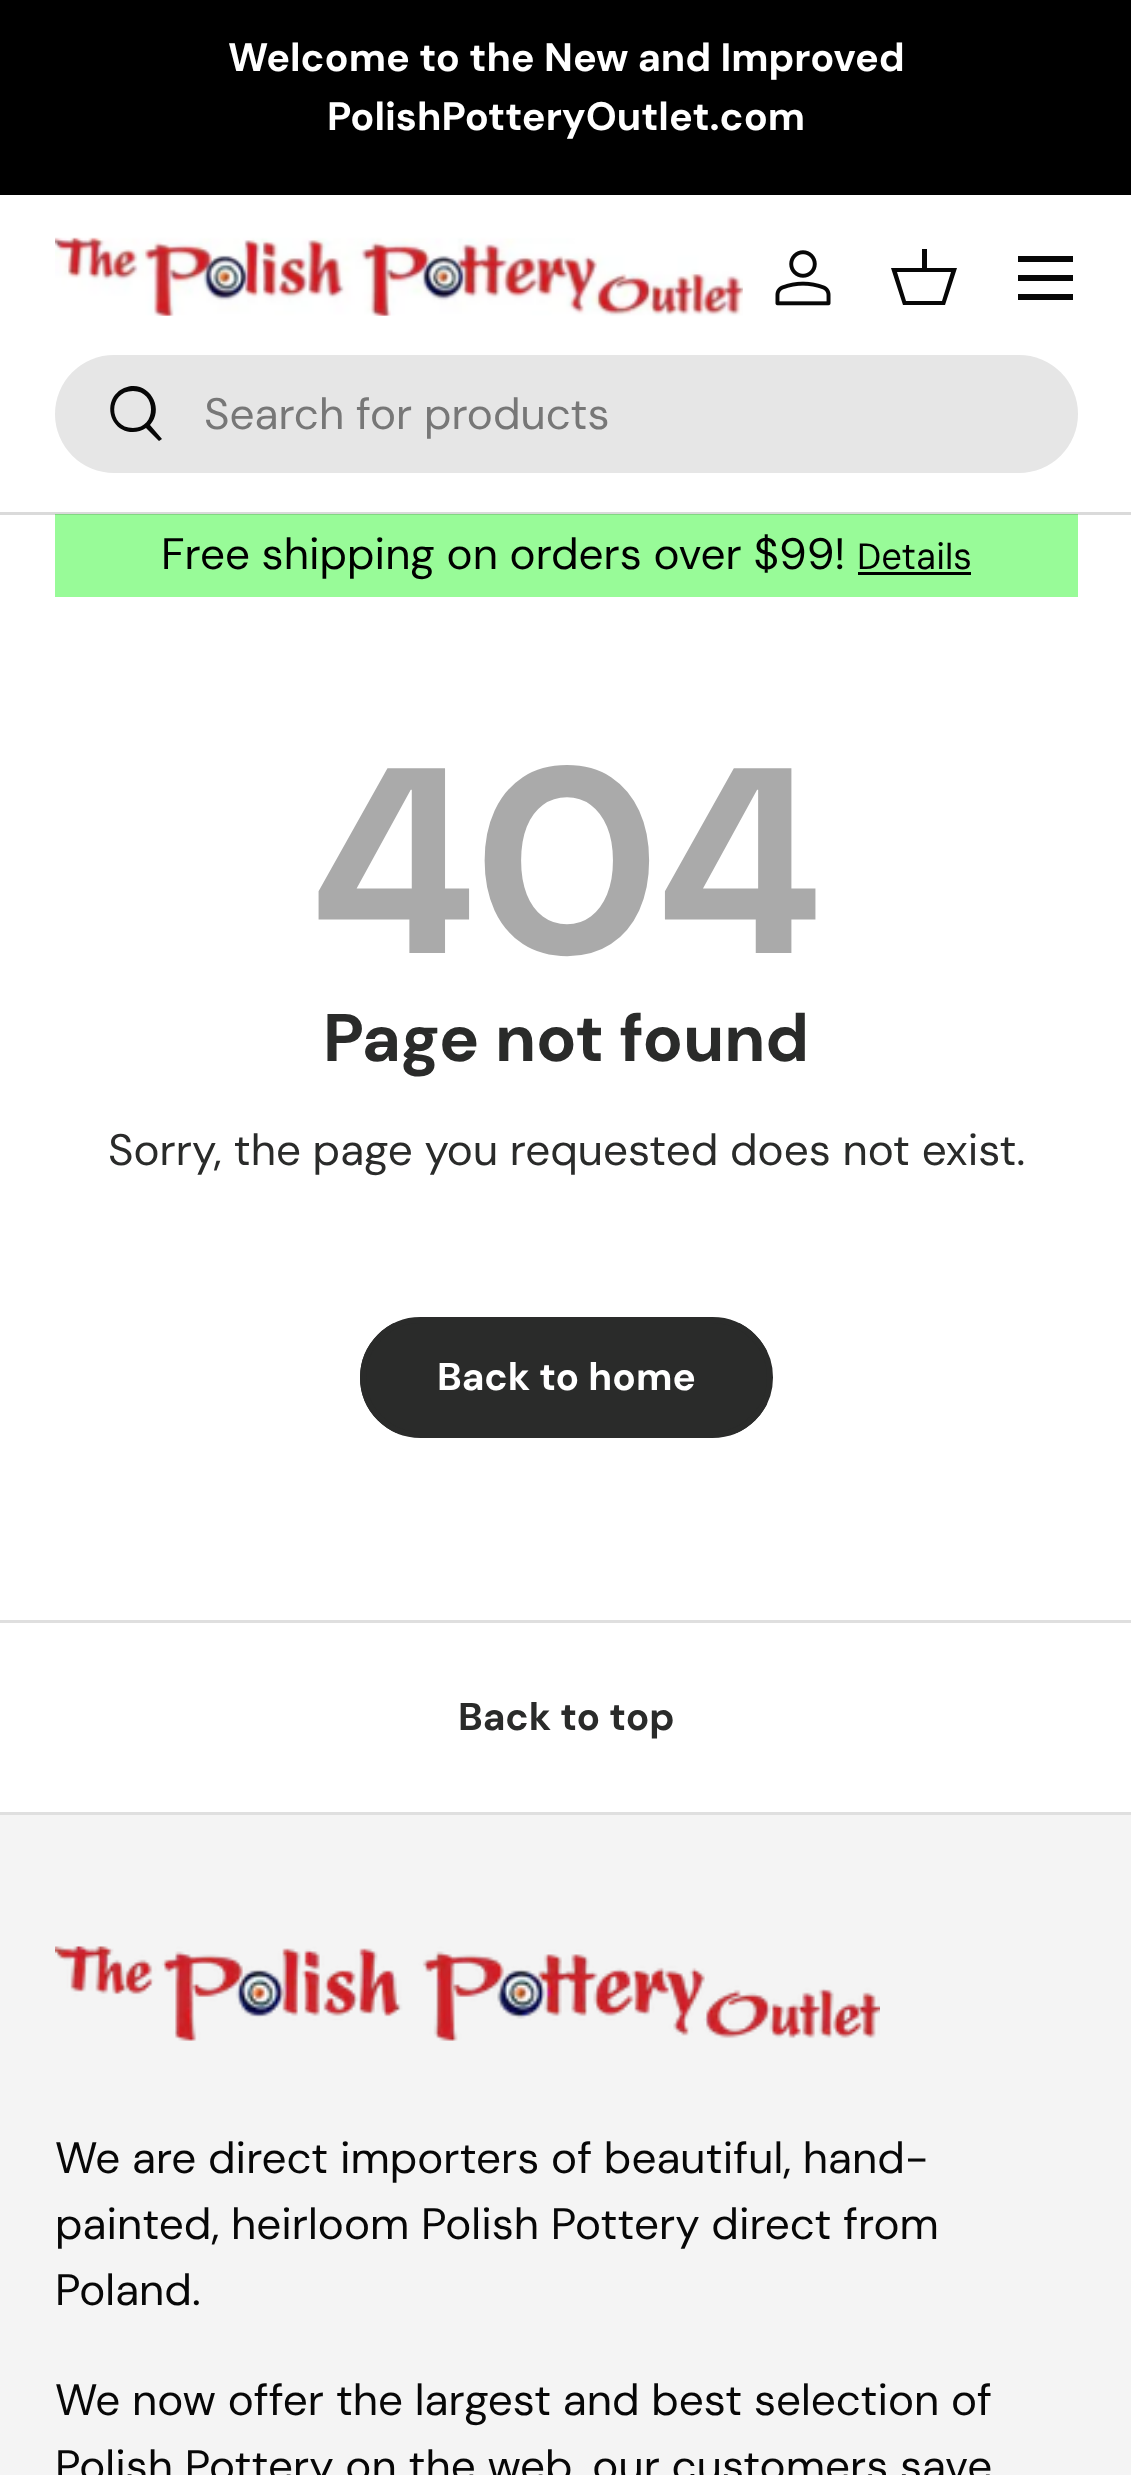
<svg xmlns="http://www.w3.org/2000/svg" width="1131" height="2475">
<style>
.a{font:bold 39.6px 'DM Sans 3';fill:#fff}
.b{font:44px DM Sans;fill:#777}
.c{font:44px DM Sans;fill:#000}
.d{font:36.5px 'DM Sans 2';fill:#000}
.e{font:bold 264px DM Sans;fill:#aaa}
.f{font:bold 67px 'DM Sans 2';fill:#2a2b2a}
.g{font:44px DM Sans;fill:#2a2b2a}
.h{font:bold 38.75px 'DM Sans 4';fill:#fff}
.i{font:bold 38.75px 'DM Sans 4';fill:#2a2b2a}
.j{font:44px DM Sans;fill:#070707}
</style>
<defs>
<clipPath id="clip1"><rect x="360" y="1317" width="413" height="121" rx="60.5"/></clipPath>
<linearGradient id="g1" gradientUnits="userSpaceOnUse" x1="-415" y1="1233" x2="745" y2="1522"><stop offset="0.6" stop-color="#525352"/><stop offset="0.6" stop-color="#2a2b2a"/><stop offset="1" stop-color="#2a2b2a"/></linearGradient>
</defs>
<rect width="100%" height="100%" fill="#fff"/>
<path fill="#dadada" d="M0 512h1131v3H0z"/>
<path fill="#000" d="M0 0h1131v195H0z"/>
<image href="1.png" x="55" y="237" width="688" height="79"/>
<image href="2.png" x="775" y="250" width="56" height="56"/>
<path fill="#070707" d="M922 268v-19h5v19h30l-12 37h-42l-12-37zm-25 4l9 29h36l9-29z"/>
<path fill="#070707" d="M1018 256h55v6H1018z"/>
<path fill="#070707" d="M1018 294h55v6H1018z"/>
<path fill="#070707" d="M1018 275h55v6H1018z"/>
<rect fill="#e6e6e6" x="55" y="355" width="1023" height="118" rx="59"/>
<path fill="#070707" d="M150 425l12 14l-3 2l-13-13c-10 7-25 5-32-6c-4-6-5-15-2-22c2-5 7-10 12-12c23-10 42 19 26 37zm-17 3c24 0 24-37 0-37c-25 0-25 37 0 37z"/>
<path fill="#98fb98" d="M55 515h1023v82H55z"/>
<path fill="#82d682" d="M55 514h1023v1H55z"/>
<path fill="#000" d="M858 572h113v3H858z"/>
<g clip-path="url(#clip1)">
<path fill="url(#g1)" d="M360 1323h407v110H360z"/>
</g>
<rect fill="none" stroke="#2a2b2a" stroke-width="6" x="363" y="1320" width="407" height="115" rx="57.5"/>
<path fill="#dfdfdf" d="M0 1620h1131v3H0z"/>
<path fill="#dfdfdf" d="M0 1812h1131v3H0z"/>
<path fill="#f4f4f4" d="M0 1815h1131v660H0z"/>
<image href="3.png" x="55" y="1946" width="825" height="95"/>
<text class="a" x="228" y="71">Welcome to the New and Improved</text>
<text class="a" x="327" y="130">PolishPotteryOutlet.com</text>
<text class="b" x="204" y="429">Search for products</text>
<text class="c" x="161" y="569">Free shipping on orders over $99!</text>
<text class="d" x="857" y="569">Details</text>
<text class="e" x="312" y="953">404</text>
<text class="f" x="323" y="1061">Page not found</text>
<text class="g" x="108" y="1165">Sorry, the page you requested does not exist.</text>
<text class="h" x="437" y="1390">Back to home</text>
<text class="i" x="458" y="1730">Back to top</text>
<text class="j" x="55" y="2173">We are direct importers of beautiful, hand-</text>
<text class="j" x="55" y="2239">painted, heirloom Polish Pottery direct from</text>
<text class="j" x="55" y="2305">Poland.</text>
<text class="j" x="55" y="2415">We now offer the largest and best selection of</text>
<text class="j" x="55" y="2481">Polish Pottery on the web, our customers save</text>
</svg>
